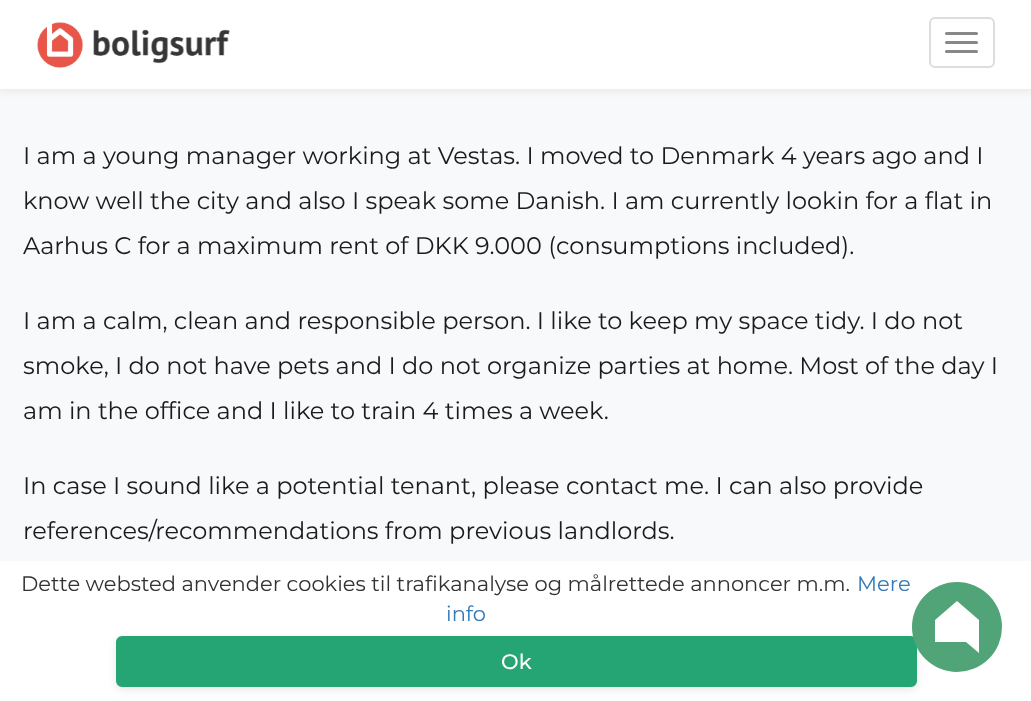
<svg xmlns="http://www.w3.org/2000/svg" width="1031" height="701">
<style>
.a{font:100 24px Montserrat;fill:#1b1b1b}
.b{font:100 21px Montserrat;fill:#333}
.c{font:100 21px Montserrat;fill:#337ab7}
.d{font:100 21px 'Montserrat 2';fill:#fff}
</style>
<rect width="100%" height="100%" fill="#f7f9fb"/>
<path fill="#0000000f" filter="blur(4px)" d="M0 2h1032v90H0z"/>
<path fill="#fff" d="M0 0h1031v89H0z"/>
<path fill="#efefef" d="M0 89h1031v2H0z"/>
<image href="1.png" x="37" y="22" width="193" height="46"/>
<rect fill="none" stroke="#ddd" stroke-width="2" x="930" y="18" width="64" height="49" rx="5"/>
<rect fill="#888" x="945" y="32" width="33" height="3" rx="1.5"/>
<rect fill="#888" x="945" y="41" width="33" height="3" rx="1.5"/>
<rect fill="#888" x="945" y="50" width="33" height="3" rx="1.5"/>
<path fill="#fff" d="M0 561h1031v140H0z"/>
<rect fill="#00000017" filter="blur(4px)" x="116" y="639" width="801" height="51" rx="6"/>
<rect fill="#26a574" stroke="#26a574" stroke-width="2" x="117" y="637" width="799" height="49" rx="5"/>
<circle fill="#51a478" cx="957" cy="627" r="45"/>
<path fill="#fff" d="M957 601l-22 19v22h31l13 11v-33z"/>
<text class="a" x="23" y="164">I am a young manager working at Vestas. I moved to Denmark 4 years ago and I</text>
<text class="a" x="23" y="209">know well the city and also I speak some Danish. I am currently lookin for a flat in</text>
<text class="a" x="23" y="254">Aarhus C for a maximum rent of DKK 9.000 (consumptions included).</text>
<text class="a" x="23" y="329">I am a calm, clean and responsible person. I like to keep my space tidy. I do not</text>
<text class="a" x="23" y="374">smoke, I do not have pets and I do not organize parties at home. Most of the day I</text>
<text class="a" x="23" y="419">am in the office and I like to train 4 times a week.</text>
<text class="a" x="23" y="494">In case I sound like a potential tenant, please contact me. I can also provide</text>
<text class="a" x="23" y="539">references/recommendations from previous landlords.</text>
<text class="b" x="21" y="591">Dette websted anvender cookies til trafikanalyse og målrettede annoncer m.m.</text>
<text class="c" x="857" y="591">Mere</text>
<text class="c" x="446" y="621">info</text>
<text class="d" x="501" y="669">Ok</text>
</svg>
